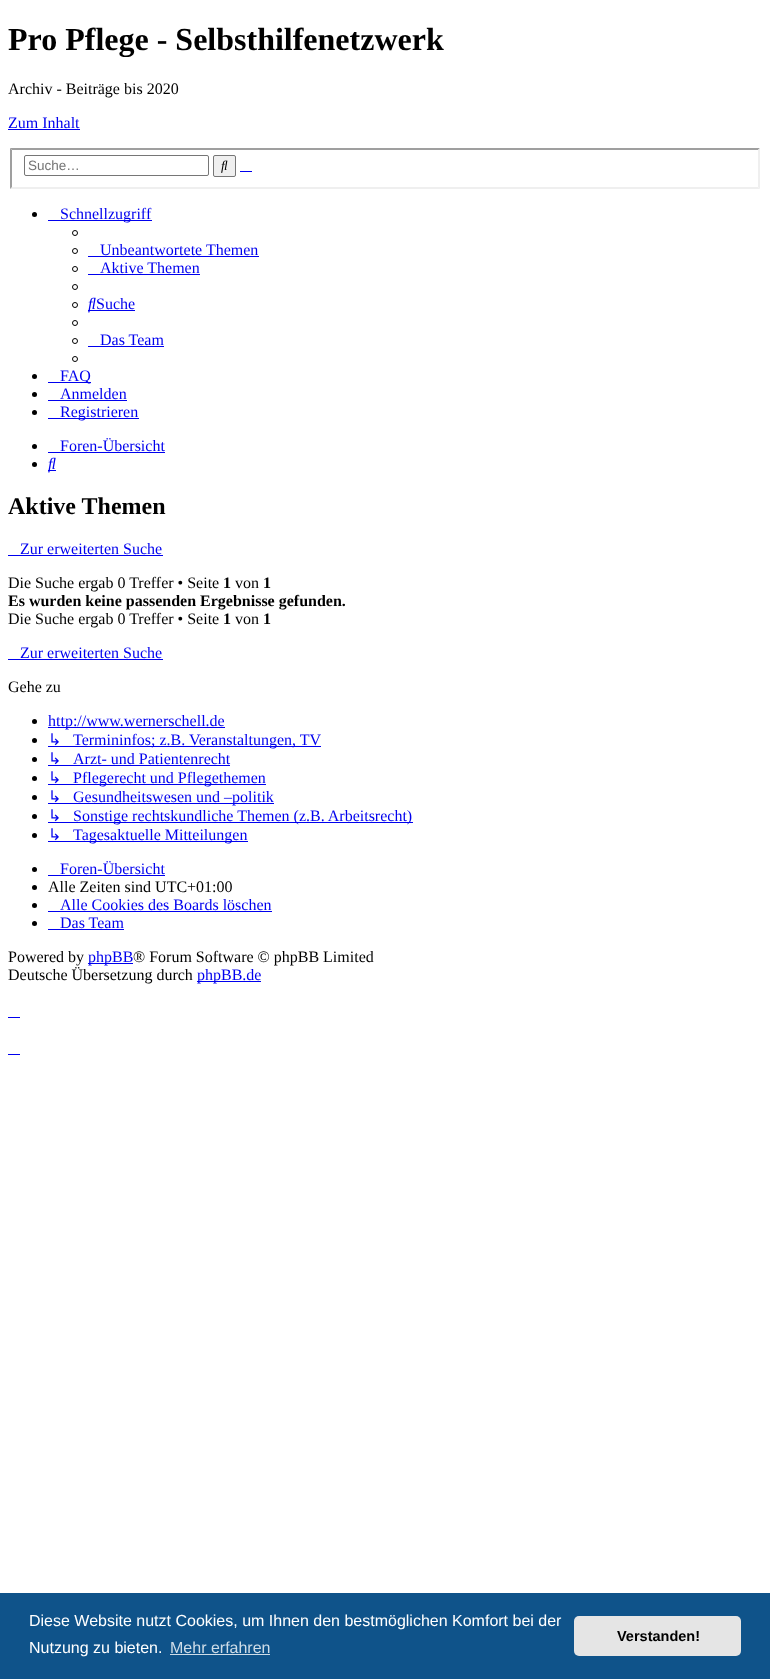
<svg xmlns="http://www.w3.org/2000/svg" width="770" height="1679">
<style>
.a{font:bold 32px Liberation Serif;fill:#000}
.b{font:16px Liberation Serif;fill:#000}
.c{font:16px Liberation Serif;fill:#00e}
.d{font:13.5px Liberation Sans;fill:#757575}
.e{font:bold 24px Liberation Serif;fill:#000}
.f{font:bold 16px Liberation Serif;fill:#000}
.g{font:16px DejaVu Sans;fill:#00e}
.h{font:16px Liberation Sans;fill:#fff}
.i{font:16px Liberation Sans;fill:#cfdde8}
.j{font:bold 14.5px Liberation Sans;fill:#000}
</style>
<rect width="100%" height="100%" fill="#fff"/>
<path fill="#00e" d="M8 129h72v1H8z"/>
<path fill="#9f9f9f" d="M10 148h750l-2 2h-746z"/>
<path fill="#efefef" d="M760 148v41l-2-2v-37z"/>
<path fill="#efefef" d="M760 189h-750l2-2h746z"/>
<path fill="#9f9f9f" d="M10 189v-41l2 2v37z"/>
<rect fill="none" stroke="#767676" x="24.5" y="155.5" width="184" height="20" rx="1.5"/>
<rect fill="#efefef" stroke="#767676" x="213.5" y="155.5" width="22" height="21" rx="1.5"/>
<image href="1.png" x="221" y="160" width="7" height="13"/>
<path fill="#00e" d="M240 171h12v1H240z"/>
<circle fill="#000" cx="34.5" cy="214.5" r="2.5"/>
<path fill="#00e" d="M48 220h104v1H48z"/>
<circle fill="none" stroke="#000" cx="75" cy="233" r="2.5"/>
<circle fill="none" stroke="#000" cx="75" cy="251" r="2.5"/>
<path fill="#00e" d="M88 256h171v1H88z"/>
<circle fill="none" stroke="#000" cx="75" cy="269" r="2.5"/>
<path fill="#00e" d="M88 274h112v1H88z"/>
<circle fill="none" stroke="#000" cx="75" cy="287" r="2.5"/>
<circle fill="none" stroke="#000" cx="75" cy="305" r="2.5"/>
<path fill="#00e" d="M88 310h47v1H88z"/>
<image href="2.png" x="88" y="297" width="8" height="16"/>
<circle fill="none" stroke="#000" cx="75" cy="323" r="2.5"/>
<circle fill="none" stroke="#000" cx="75" cy="341" r="2.5"/>
<path fill="#00e" d="M88 346h76v1H88z"/>
<circle fill="none" stroke="#000" cx="75" cy="359" r="2.5"/>
<circle fill="#000" cx="34.5" cy="376.5" r="2.5"/>
<path fill="#00e" d="M48 382h43v1H48z"/>
<circle fill="#000" cx="34.5" cy="394.5" r="2.5"/>
<path fill="#00e" d="M48 400h79v1H48z"/>
<circle fill="#000" cx="34.5" cy="412.5" r="2.5"/>
<path fill="#00e" d="M48 418h91v1H48z"/>
<circle fill="#000" cx="34.5" cy="446.5" r="2.5"/>
<path fill="#00e" d="M48 452h117v1H48z"/>
<circle fill="#000" cx="34.5" cy="464.5" r="2.5"/>
<path fill="#00e" d="M48 470h8v1H48z"/>
<image href="2.png" x="48" y="457" width="8" height="16"/>
<path fill="#00e" d="M8 555h155v1H8z"/>
<path fill="#00e" d="M8 659h155v1H8z"/>
<circle fill="#000" cx="34.5" cy="721.5" r="2.5"/>
<path fill="#00e" d="M48 727h177v1H48z"/>
<circle fill="#000" cx="34.5" cy="740.5" r="2.5"/>
<path fill="#00e" d="M48 746h273v1H48z"/>
<circle fill="#000" cx="34.5" cy="759.5" r="2.5"/>
<path fill="#00e" d="M48 765h182v1H48z"/>
<circle fill="#000" cx="34.5" cy="778.5" r="2.5"/>
<path fill="#00e" d="M48 784h218v1H48z"/>
<circle fill="#000" cx="34.5" cy="797.5" r="2.5"/>
<path fill="#00e" d="M48 803h226v1H48z"/>
<circle fill="#000" cx="34.5" cy="816.5" r="2.5"/>
<path fill="#00e" d="M48 822h365v1H48z"/>
<circle fill="#000" cx="34.5" cy="835.5" r="2.5"/>
<path fill="#00e" d="M48 841h200v1H48z"/>
<circle fill="#000" cx="34.5" cy="869.5" r="2.5"/>
<path fill="#00e" d="M48 875h117v1H48z"/>
<circle fill="#000" cx="34.5" cy="887.5" r="2.5"/>
<circle fill="#000" cx="34.5" cy="905.5" r="2.5"/>
<path fill="#00e" d="M48 911h224v1H48z"/>
<circle fill="#000" cx="34.5" cy="923.5" r="2.5"/>
<path fill="#00e" d="M48 929h76v1H48z"/>
<path fill="#00e" d="M88 963h45v1H88z"/>
<path fill="#00e" d="M197 981h64v1H197z"/>
<path fill="#00e" d="M8 1017h12v1H8z"/>
<path fill="#00e" d="M8 1054h12v1H8z"/>
<path fill="#0f538a" d="M0 1593h770v86H0z"/>
<path fill="#cfdde8" d="M170 1654h100v1H170z"/>
<rect fill="#e5e5e5" x="574" y="1616" width="167" height="40" rx="5"/>
<text class="a" x="8" y="50">Pro Pflege - Selbsthilfenetzwerk</text>
<text class="b" x="8" y="94">Archiv - Beiträge bis 2020</text>
<text class="c" x="8" y="128">Zum Inhalt</text>
<text class="d" x="28" y="170">Suche…</text>
<text class="c" x="60" y="219">Schnellzugriff</text>
<text class="c" x="100" y="255">Unbeantwortete Themen</text>
<text class="c" x="100" y="273">Aktive Themen</text>
<text class="c" x="96" y="309">Suche</text>
<text class="c" x="100" y="345">Das Team</text>
<text class="c" x="60" y="381">FAQ</text>
<text class="c" x="60" y="399">Anmelden</text>
<text class="c" x="60" y="417">Registrieren</text>
<text class="c" x="60" y="451">Foren-Übersicht</text>
<text class="e" x="8" y="514">Aktive Themen</text>
<text class="c" x="20" y="554">Zur erweiterten Suche</text>
<text class="b" x="8" y="588">Die Suche ergab 0 Treffer • Seite</text>
<text class="f" x="223" y="588">1</text>
<text class="b" x="235" y="588">von</text>
<text class="f" x="263" y="588">1</text>
<text class="f" x="8" y="606">Es wurden keine passenden Ergebnisse gefunden.</text>
<text class="b" x="8" y="624">Die Suche ergab 0 Treffer • Seite</text>
<text class="f" x="223" y="624">1</text>
<text class="b" x="235" y="624">von</text>
<text class="f" x="263" y="624">1</text>
<text class="c" x="20" y="658">Zur erweiterten Suche</text>
<text class="b" x="8" y="692">Gehe zu</text>
<text class="c" x="48" y="726">http://www.wernerschell.de</text>
<text class="g" x="48" y="745">↳</text>
<text class="c" x="73" y="745">Termininfos; z.B. Veranstaltungen, TV</text>
<text class="g" x="48" y="764">↳</text>
<text class="c" x="73" y="764">Arzt- und Patientenrecht</text>
<text class="g" x="48" y="783">↳</text>
<text class="c" x="73" y="783">Pflegerecht und Pflegethemen</text>
<text class="g" x="48" y="802">↳</text>
<text class="c" x="73" y="802">Gesundheitswesen und –politik</text>
<text class="g" x="48" y="821">↳</text>
<text class="c" x="73" y="821">Sonstige rechtskundliche Themen (z.B. Arbeitsrecht)</text>
<text class="g" x="48" y="840">↳</text>
<text class="c" x="73" y="840">Tagesaktuelle Mitteilungen</text>
<text class="c" x="60" y="874">Foren-Übersicht</text>
<text class="b" x="48" y="892">Alle Zeiten sind UTC+01:00</text>
<text class="c" x="60" y="910">Alle Cookies des Boards löschen</text>
<text class="c" x="60" y="928">Das Team</text>
<text class="b" x="8" y="962">Powered by</text>
<text class="c" x="88" y="962">phpBB</text>
<text class="b" x="133" y="962">® Forum Software © phpBB Limited</text>
<text class="b" x="8" y="980">Deutsche Übersetzung durch</text>
<text class="c" x="197" y="980">phpBB.de</text>
<text class="h" x="29" y="1626">Diese Website nutzt Cookies, um Ihnen den bestmöglichen Komfort bei der</text>
<text class="h" x="29" y="1653">Nutzung zu bieten.</text>
<text class="i" x="170" y="1653">Mehr erfahren</text>
<text class="j" x="617" y="1641">Verstanden!</text>
</svg>
